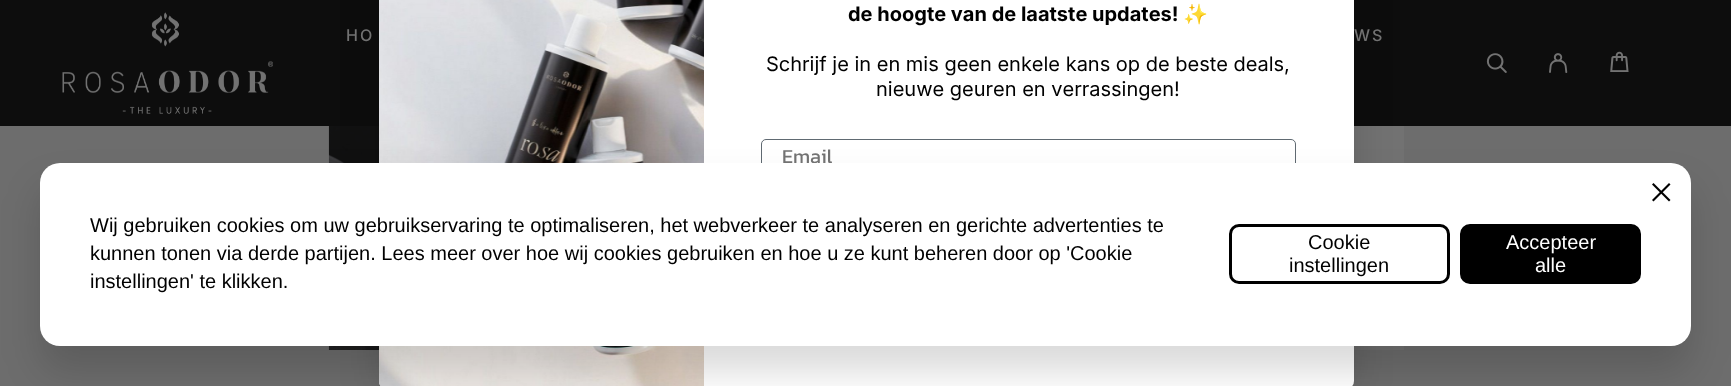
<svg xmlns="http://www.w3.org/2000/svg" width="1731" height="386">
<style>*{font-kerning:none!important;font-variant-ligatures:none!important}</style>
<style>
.a{font:bold 20px Inter;fill:#000}
.b{font:bold 20px Noto Color Emoji;fill:#000}
.c{font:20px Inter;fill:#000}
.d{font:20px Kanit;fill:#727272}
.e{font:500 16px Inter;letter-spacing:2px;fill:#727272}
.f{font:20px Liberation Sans;fill:#000}
.g{font:20px Liberation Sans;fill:#fff}
</style>
<rect width="100%" height="100%" fill="#6d6d6d"/>
<path fill="#0d0d0d" d="M0 0h1731v126H0z"/>
<image href="6.png" x="328" y="126" width="51" height="224"/>
<path fill="#727272" d="M1354 126h50v224H1354z"/>
<rect fill="#00000026" filter="blur(19px)" x="379" y="-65" width="975" height="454" rx="8"/>
<rect fill="#fff" x="379" y="-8" width="975" height="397" rx="8"/>
<image href="1.png" x="379" y="0" width="325" height="386"/>
<rect fill="none" stroke="#606a72" x="761.5" y="139.5" width="534" height="31" rx="4.5"/>
<image href="2.png" x="62" y="12" width="211" height="102"/>
<image href="3.png" x="1486" y="53" width="21" height="20"/>
<image href="4.png" x="1549" y="53" width="19" height="20"/>
<image href="5.png" x="1610" y="51" width="19" height="21"/>
<rect fill="#00000026" filter="blur(19px)" x="40" y="188" width="1651" height="183" rx="20"/>
<text class="a" x="848" y="21">de hoogte van de laatste updates!</text>
<text class="b" x="1183" y="21">✨</text>
<text class="c" x="766" y="71">Schrijf je in en mis geen enkele kans op de beste deals,</text>
<text class="c" x="876" y="96">nieuwe geuren en verrassingen!</text>
<text class="d" x="782" y="163">Email</text>
<text class="e" x="346" y="41">HO</text>
<text class="e" x="1354" y="41">WS</text>
<rect fill="#fff" x="40" y="163" width="1651" height="183" rx="20"/>
<text class="f" x="90" y="232">Wij gebruiken cookies om uw gebruikservaring te optimaliseren, het webverkeer te analyseren en gerichte advertenties te</text>
<text class="f" x="90" y="260">kunnen tonen via derde partijen. Lees meer over hoe wij cookies gebruiken en hoe u ze kunt beheren door op 'Cookie</text>
<text class="f" x="90" y="288">instellingen' te klikken.</text>
<path fill="#000" d="M1669 183l1.5 1.5l-17 17l-1.5-1.5z"/>
<path fill="#000" d="M1653.5 183l17 17l-1.5 1.5l-17-17z"/>
<rect fill="none" stroke="#000" stroke-width="3" x="1230.5" y="225.5" width="218" height="57" rx="8.5"/>
<text class="f" x="1308" y="249">Cookie</text>
<text class="f" x="1289" y="272">instellingen</text>
<rect fill="#000" stroke="#000" stroke-width="3" x="1461.5" y="225.5" width="178" height="57" rx="8.5"/>
<text class="g" x="1506" y="249">Accepteer</text>
<text class="g" x="1535" y="272">alle</text>
</svg>
